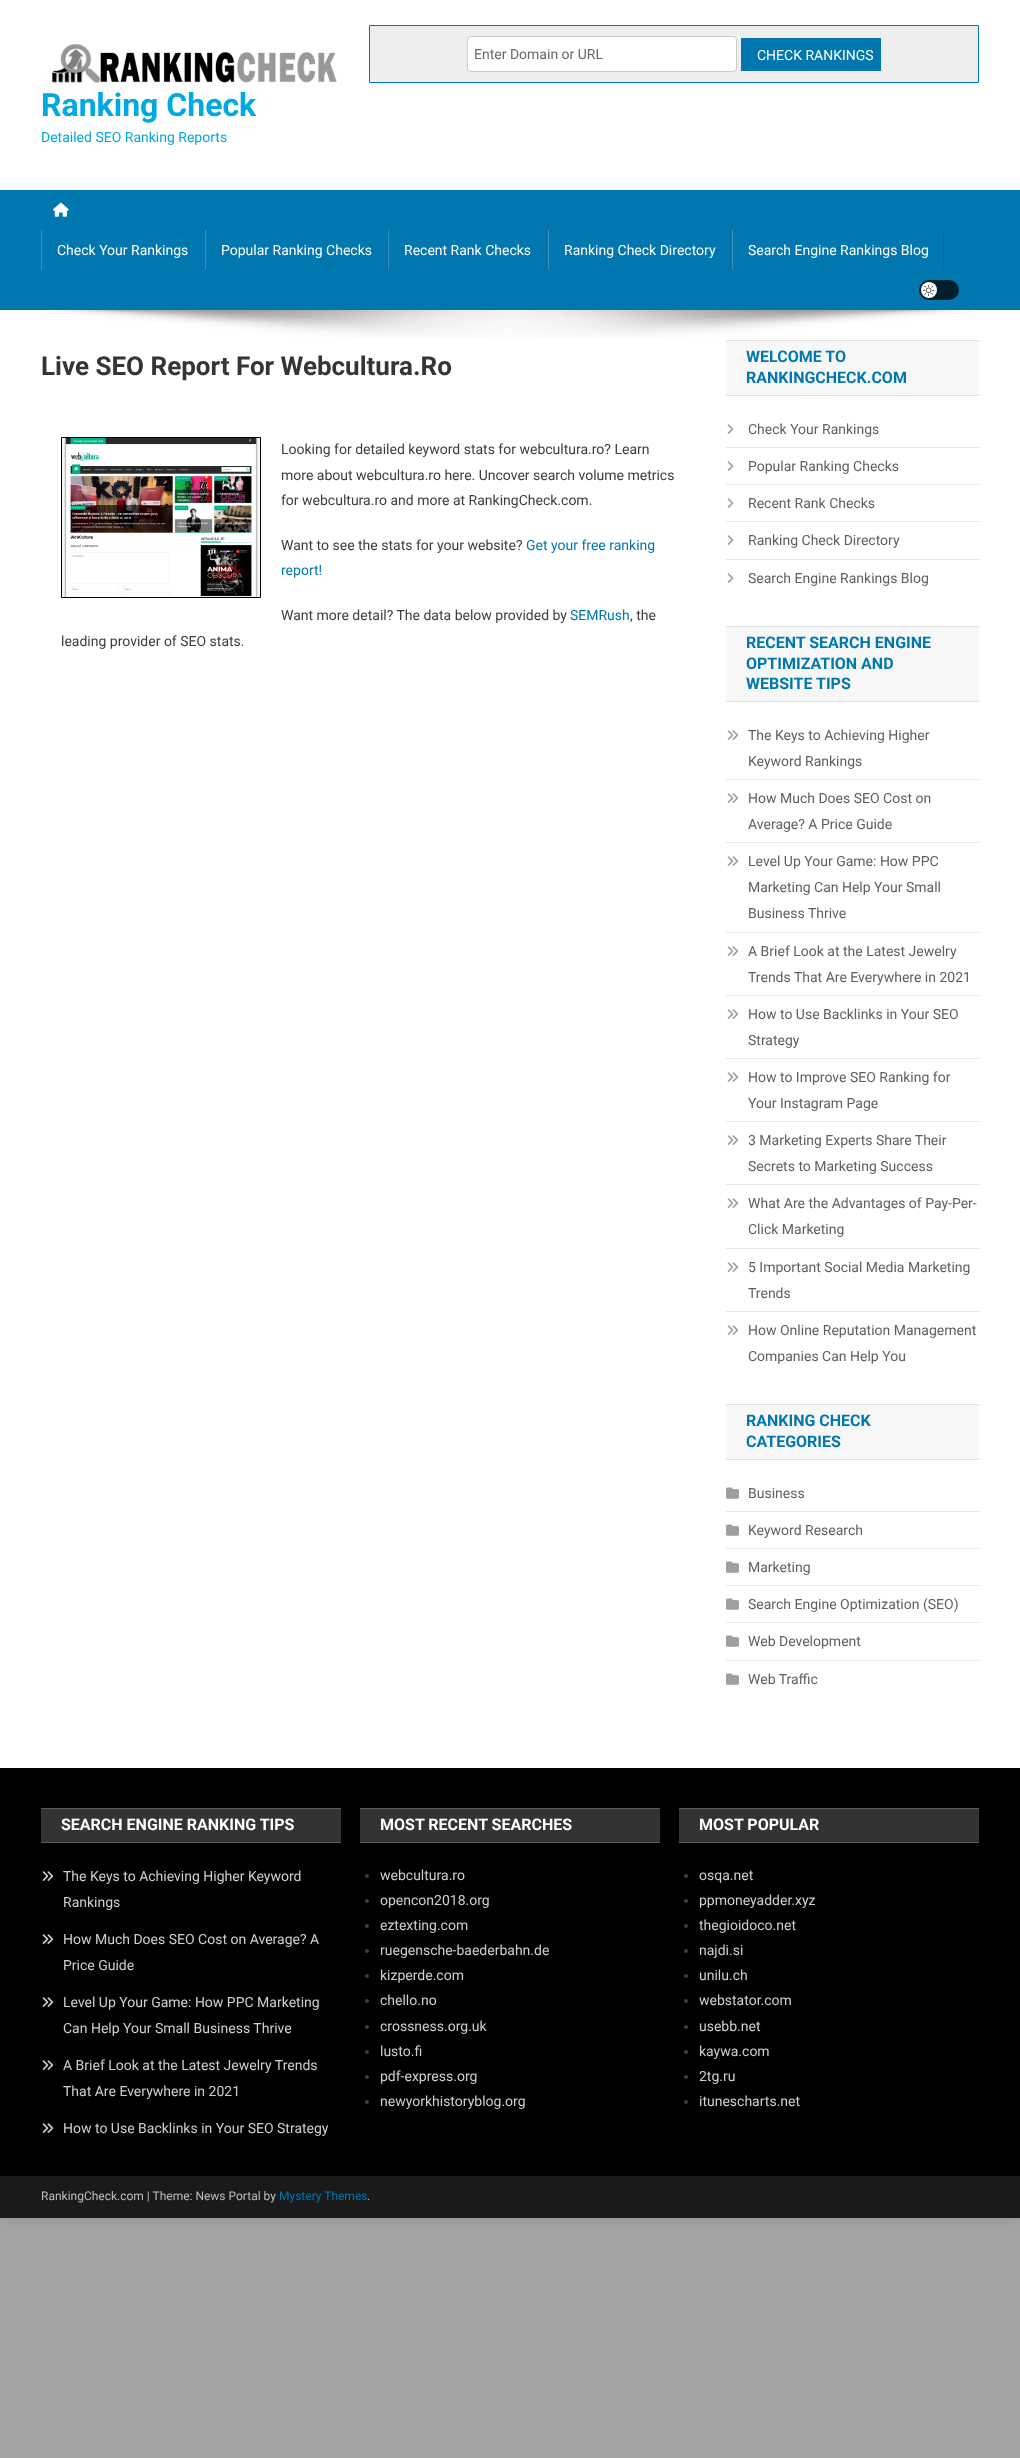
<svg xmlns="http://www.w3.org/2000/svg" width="1020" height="2458">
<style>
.a{font:14px Roboto;fill:#646970}
.b{font:14px Roboto;fill:#fff}
.c{font:bold 32px Roboto;fill:#00a9e0}
.d{font:14px Roboto;fill:#00a9e0}
.e{font:bold 26px Roboto;fill:#353535}
.f{font:14px Roboto;fill:#3d3d3d}
.g{font:14px Roboto;fill:#0077ae}
.h{font:bold 16px Roboto;fill:#0077ae}
.i{font:14px Roboto;fill:#5f5f5f}
.j{font:bold 16px Roboto;fill:#fff}
.k{font:14px Roboto;fill:#cfcfcf}
.l{font:12px Roboto;fill:#bfbfbf}
.m{font:12px Roboto;fill:#0077ae}
</style>
<rect width="100%" height="100%" fill="#a3a3a3"/>
<path fill="#0000001a" filter="blur(7.5px)" d="M0 0h1020v2218H0z"/>
<path fill="#fff" d="M0 0h1020v1768H0z"/>
<path fill="#eee" stroke="#0077ae" d="M369.5 25.5h609v57H369.5z"/>
<rect fill="#fff" stroke="#ccc" x="467.5" y="36.5" width="269" height="35" rx="3.5"/>
<path fill="#0077ae" d="M741 38h140v33H741z"/>
<image href="1.png" x="52" y="44" width="285" height="40"/>
<path fill="#0077ae" d="M0 190h1020v120H0z"/>
<image href="2.png" x="53" y="202" width="16" height="15"/>
<path fill="#006da0" d="M203 230h1v40H203z"/>
<path fill="#3392be" d="M41 230h1v40H41z"/>
<path fill="#006da0" d="M387 230h1v40H387z"/>
<path fill="#3392be" d="M205 230h1v40H205z"/>
<path fill="#006da0" d="M546 230h1v40H546z"/>
<path fill="#3392be" d="M388 230h1v40H388z"/>
<path fill="#006da0" d="M730 230h1v40H730z"/>
<path fill="#3392be" d="M548 230h1v40H548z"/>
<path fill="#006da0" d="M943 230h1v40H943z"/>
<path fill="#3392be" d="M732 230h1v40H732z"/>
<rect fill="#001e2c" x="919" y="280" width="40" height="20" rx="10"/>
<circle fill="#fff" cx="929" cy="290" r="8"/>
<image href="3.png" x="923" y="284" width="12" height="12"/>
<image href="4.png" x="47" y="310" width="925" height="28"/>
<path fill="none" stroke="#000" d="M61.5 437.5h199v160H61.5z"/>
<image href="5.png" x="62" y="438" width="198" height="159"/>
<path fill="#f7f7f7" d="M726 341h253v54H726z"/>
<path fill="#e1e1e1" d="M726 340h253v1H726z"/>
<path fill="#e1e1e1" d="M726 395h253v1H726z"/>
<path fill="#e6e6e6" d="M726 447h253v1H726z"/>
<image href="6.png" x="727" y="424" width="7" height="10"/>
<path fill="#e6e6e6" d="M726 484h253v1H726z"/>
<image href="6.png" x="727" y="461" width="7" height="10"/>
<path fill="#e6e6e6" d="M726 521h253v1H726z"/>
<image href="6.png" x="727" y="498" width="7" height="10"/>
<path fill="#e6e6e6" d="M726 559h253v1H726z"/>
<image href="6.png" x="727" y="535" width="7" height="10"/>
<image href="6.png" x="727" y="573" width="7" height="10"/>
<path fill="#f7f7f7" d="M726 627h253v74H726z"/>
<path fill="#e1e1e1" d="M726 626h253v1H726z"/>
<path fill="#e1e1e1" d="M726 701h253v1H726z"/>
<path fill="#e6e6e6" d="M726 779h253v1H726z"/>
<image href="7.png" x="727" y="730" width="12" height="10"/>
<path fill="#e6e6e6" d="M726 842h253v1H726z"/>
<image href="7.png" x="727" y="793" width="12" height="10"/>
<path fill="#e6e6e6" d="M726 932h253v1H726z"/>
<image href="7.png" x="727" y="856" width="12" height="10"/>
<path fill="#e6e6e6" d="M726 995h253v1H726z"/>
<image href="7.png" x="727" y="946" width="12" height="10"/>
<path fill="#e6e6e6" d="M726 1058h253v1H726z"/>
<image href="7.png" x="727" y="1009" width="12" height="10"/>
<path fill="#e6e6e6" d="M726 1121h253v1H726z"/>
<image href="7.png" x="727" y="1072" width="12" height="10"/>
<path fill="#e6e6e6" d="M726 1184h253v1H726z"/>
<image href="7.png" x="727" y="1135" width="12" height="10"/>
<path fill="#e6e6e6" d="M726 1248h253v1H726z"/>
<image href="7.png" x="727" y="1198" width="12" height="10"/>
<path fill="#e6e6e6" d="M726 1311h253v1H726z"/>
<image href="7.png" x="727" y="1262" width="12" height="10"/>
<image href="7.png" x="727" y="1325" width="12" height="10"/>
<path fill="#f7f7f7" d="M726 1405h253v54H726z"/>
<path fill="#e1e1e1" d="M726 1404h253v1H726z"/>
<path fill="#e1e1e1" d="M726 1459h253v1H726z"/>
<path fill="#e6e6e6" d="M726 1511h253v1H726z"/>
<image href="8.png" x="726" y="1487" width="13" height="12"/>
<path fill="#e6e6e6" d="M726 1548h253v1H726z"/>
<image href="8.png" x="726" y="1524" width="13" height="12"/>
<path fill="#e6e6e6" d="M726 1585h253v1H726z"/>
<image href="8.png" x="726" y="1561" width="13" height="12"/>
<path fill="#e6e6e6" d="M726 1622h253v1H726z"/>
<image href="8.png" x="726" y="1598" width="13" height="12"/>
<path fill="#e6e6e6" d="M726 1660h253v1H726z"/>
<image href="8.png" x="726" y="1635" width="13" height="12"/>
<image href="8.png" x="726" y="1673" width="13" height="12"/>
<path fill="#000" d="M0 1768h1020v408H0z"/>
<path fill="#333" d="M41 1809h300v33H41z"/>
<path fill="#5c5c5c" d="M41 1808h300v1H41z"/>
<path fill="#5c5c5c" d="M41 1842h300v1H41z"/>
<image href="9.png" x="42" y="1871" width="12" height="10"/>
<image href="9.png" x="42" y="1934" width="12" height="10"/>
<image href="9.png" x="42" y="1997" width="12" height="10"/>
<image href="9.png" x="42" y="2060" width="12" height="10"/>
<image href="9.png" x="42" y="2123" width="12" height="10"/>
<path fill="#333" d="M360 1809h300v33H360z"/>
<path fill="#5c5c5c" d="M360 1808h300v1H360z"/>
<path fill="#5c5c5c" d="M360 1842h300v1H360z"/>
<circle fill="#3d3d3d" cx="367" cy="1876" r="2"/>
<circle fill="#3d3d3d" cx="367" cy="1901" r="2"/>
<circle fill="#3d3d3d" cx="367" cy="1926" r="2"/>
<circle fill="#3d3d3d" cx="367" cy="1951" r="2"/>
<circle fill="#3d3d3d" cx="367" cy="1976" r="2"/>
<circle fill="#3d3d3d" cx="367" cy="2001" r="2"/>
<circle fill="#3d3d3d" cx="367" cy="2027" r="2"/>
<circle fill="#3d3d3d" cx="367" cy="2052" r="2"/>
<circle fill="#3d3d3d" cx="367" cy="2077" r="2"/>
<circle fill="#3d3d3d" cx="367" cy="2102" r="2"/>
<path fill="#333" d="M679 1809h300v33H679z"/>
<path fill="#5c5c5c" d="M679 1808h300v1H679z"/>
<path fill="#5c5c5c" d="M679 1842h300v1H679z"/>
<circle fill="#3d3d3d" cx="686" cy="1876" r="2"/>
<circle fill="#3d3d3d" cx="686" cy="1901" r="2"/>
<circle fill="#3d3d3d" cx="686" cy="1926" r="2"/>
<circle fill="#3d3d3d" cx="686" cy="1951" r="2"/>
<circle fill="#3d3d3d" cx="686" cy="1976" r="2"/>
<circle fill="#3d3d3d" cx="686" cy="2001" r="2"/>
<circle fill="#3d3d3d" cx="686" cy="2027" r="2"/>
<circle fill="#3d3d3d" cx="686" cy="2052" r="2"/>
<circle fill="#3d3d3d" cx="686" cy="2077" r="2"/>
<circle fill="#3d3d3d" cx="686" cy="2102" r="2"/>
<path fill="#1a1a1a" d="M0 2176h1020v42H0z"/>
<text class="a" x="474" y="59">Enter Domain or URL</text>
<text class="b" x="757" y="60">CHECK RANKINGS</text>
<text class="c" x="41" y="116">Ranking Check</text>
<text class="d" x="41" y="142">Detailed SEO Ranking Reports</text>
<text class="b" x="57" y="255">Check Your Rankings</text>
<text class="b" x="221" y="255">Popular Ranking Checks</text>
<text class="b" x="404" y="255">Recent Rank Checks</text>
<text class="b" x="564" y="255">Ranking Check Directory</text>
<text class="b" x="748" y="255">Search Engine Rankings Blog</text>
<text class="e" x="41" y="375">Live SEO Report For Webcultura.Ro</text>
<text class="f" x="281" y="454">Looking for detailed keyword stats for webcultura.ro? Learn</text>
<text class="f" x="281" y="480">more about webcultura.ro here. Uncover search volume metrics</text>
<text class="f" x="281" y="505">for webcultura.ro and more at RankingCheck.com.</text>
<text class="f" x="281" y="550">Want to see the stats for your website?</text>
<text class="g" x="526" y="550">Get your free ranking</text>
<text class="g" x="281" y="575">report!</text>
<text class="f" x="281" y="620">Want more detail? The data below provided by</text>
<text class="g" x="570" y="620">SEMRush</text>
<text class="f" x="630" y="620">, the</text>
<text class="f" x="61" y="646">leading provider of SEO stats.</text>
<text class="h" x="746" y="362">WELCOME TO</text>
<text class="h" x="746" y="383">RANKINGCHECK.COM</text>
<text class="i" x="748" y="434">Check Your Rankings</text>
<text class="i" x="748" y="471">Popular Ranking Checks</text>
<text class="i" x="748" y="508">Recent Rank Checks</text>
<text class="i" x="748" y="545">Ranking Check Directory</text>
<text class="i" x="748" y="583">Search Engine Rankings Blog</text>
<text class="h" x="746" y="648">RECENT SEARCH ENGINE</text>
<text class="h" x="746" y="669">OPTIMIZATION AND</text>
<text class="h" x="746" y="689">WEBSITE TIPS</text>
<text class="i" x="748" y="740">The Keys to Achieving Higher</text>
<text class="i" x="748" y="766">Keyword Rankings</text>
<text class="i" x="748" y="803">How Much Does SEO Cost on</text>
<text class="i" x="748" y="829">Average? A Price Guide</text>
<text class="i" x="748" y="866">Level Up Your Game: How PPC</text>
<text class="i" x="748" y="892">Marketing Can Help Your Small</text>
<text class="i" x="748" y="918">Business Thrive</text>
<text class="i" x="748" y="956">A Brief Look at the Latest Jewelry</text>
<text class="i" x="748" y="982">Trends That Are Everywhere in 2021</text>
<text class="i" x="748" y="1019">How to Use Backlinks in Your SEO</text>
<text class="i" x="748" y="1045">Strategy</text>
<text class="i" x="748" y="1082">How to Improve SEO Ranking for</text>
<text class="i" x="748" y="1108">Your Instagram Page</text>
<text class="i" x="748" y="1145">3 Marketing Experts Share Their</text>
<text class="i" x="748" y="1171">Secrets to Marketing Success</text>
<text class="i" x="748" y="1208">What Are the Advantages of Pay-Per-</text>
<text class="i" x="748" y="1234">Click Marketing</text>
<text class="i" x="748" y="1272">5 Important Social Media Marketing</text>
<text class="i" x="748" y="1298">Trends</text>
<text class="i" x="748" y="1335">How Online Reputation Management</text>
<text class="i" x="748" y="1361">Companies Can Help You</text>
<text class="h" x="746" y="1426">RANKING CHECK</text>
<text class="h" x="746" y="1447">CATEGORIES</text>
<text class="i" x="748" y="1498">Business</text>
<text class="i" x="748" y="1535">Keyword Research</text>
<text class="i" x="748" y="1572">Marketing</text>
<text class="i" x="748" y="1609">Search Engine Optimization (SEO)</text>
<text class="i" x="748" y="1646">Web Development</text>
<text class="i" x="748" y="1684">Web Traffic</text>
<text class="j" x="61" y="1830">SEARCH ENGINE RANKING TIPS</text>
<text class="k" x="63" y="1881">The Keys to Achieving Higher Keyword</text>
<text class="k" x="63" y="1907">Rankings</text>
<text class="k" x="63" y="1944">How Much Does SEO Cost on Average? A</text>
<text class="k" x="63" y="1970">Price Guide</text>
<text class="k" x="63" y="2007">Level Up Your Game: How PPC Marketing</text>
<text class="k" x="63" y="2033">Can Help Your Small Business Thrive</text>
<text class="k" x="63" y="2070">A Brief Look at the Latest Jewelry Trends</text>
<text class="k" x="63" y="2096">That Are Everywhere in 2021</text>
<text class="k" x="63" y="2133">How to Use Backlinks in Your SEO Strategy</text>
<text class="j" x="380" y="1830">MOST RECENT SEARCHES</text>
<text class="k" x="380" y="1880">webcultura.ro</text>
<text class="k" x="380" y="1905">opencon2018.org</text>
<text class="k" x="380" y="1930">eztexting.com</text>
<text class="k" x="380" y="1955">ruegensche-baederbahn.de</text>
<text class="k" x="380" y="1980">kizperde.com</text>
<text class="k" x="380" y="2005">chello.no</text>
<text class="k" x="380" y="2031">crossness.org.uk</text>
<text class="k" x="380" y="2056">lusto.fi</text>
<text class="k" x="380" y="2081">pdf-express.org</text>
<text class="k" x="380" y="2106">newyorkhistoryblog.org</text>
<text class="j" x="699" y="1830">MOST POPULAR</text>
<text class="k" x="699" y="1880">osqa.net</text>
<text class="k" x="699" y="1905">ppmoneyadder.xyz</text>
<text class="k" x="699" y="1930">thegioidoco.net</text>
<text class="k" x="699" y="1955">najdi.si</text>
<text class="k" x="699" y="1980">unilu.ch</text>
<text class="k" x="699" y="2005">webstator.com</text>
<text class="k" x="699" y="2031">usebb.net</text>
<text class="k" x="699" y="2056">kaywa.com</text>
<text class="k" x="699" y="2081">2tg.ru</text>
<text class="k" x="699" y="2106">itunescharts.net</text>
<text class="l" x="41" y="2200">RankingCheck.com | Theme: News Portal by</text>
<text class="m" x="279" y="2200">Mystery Themes</text>
<text class="l" x="367" y="2200">.</text>
</svg>
